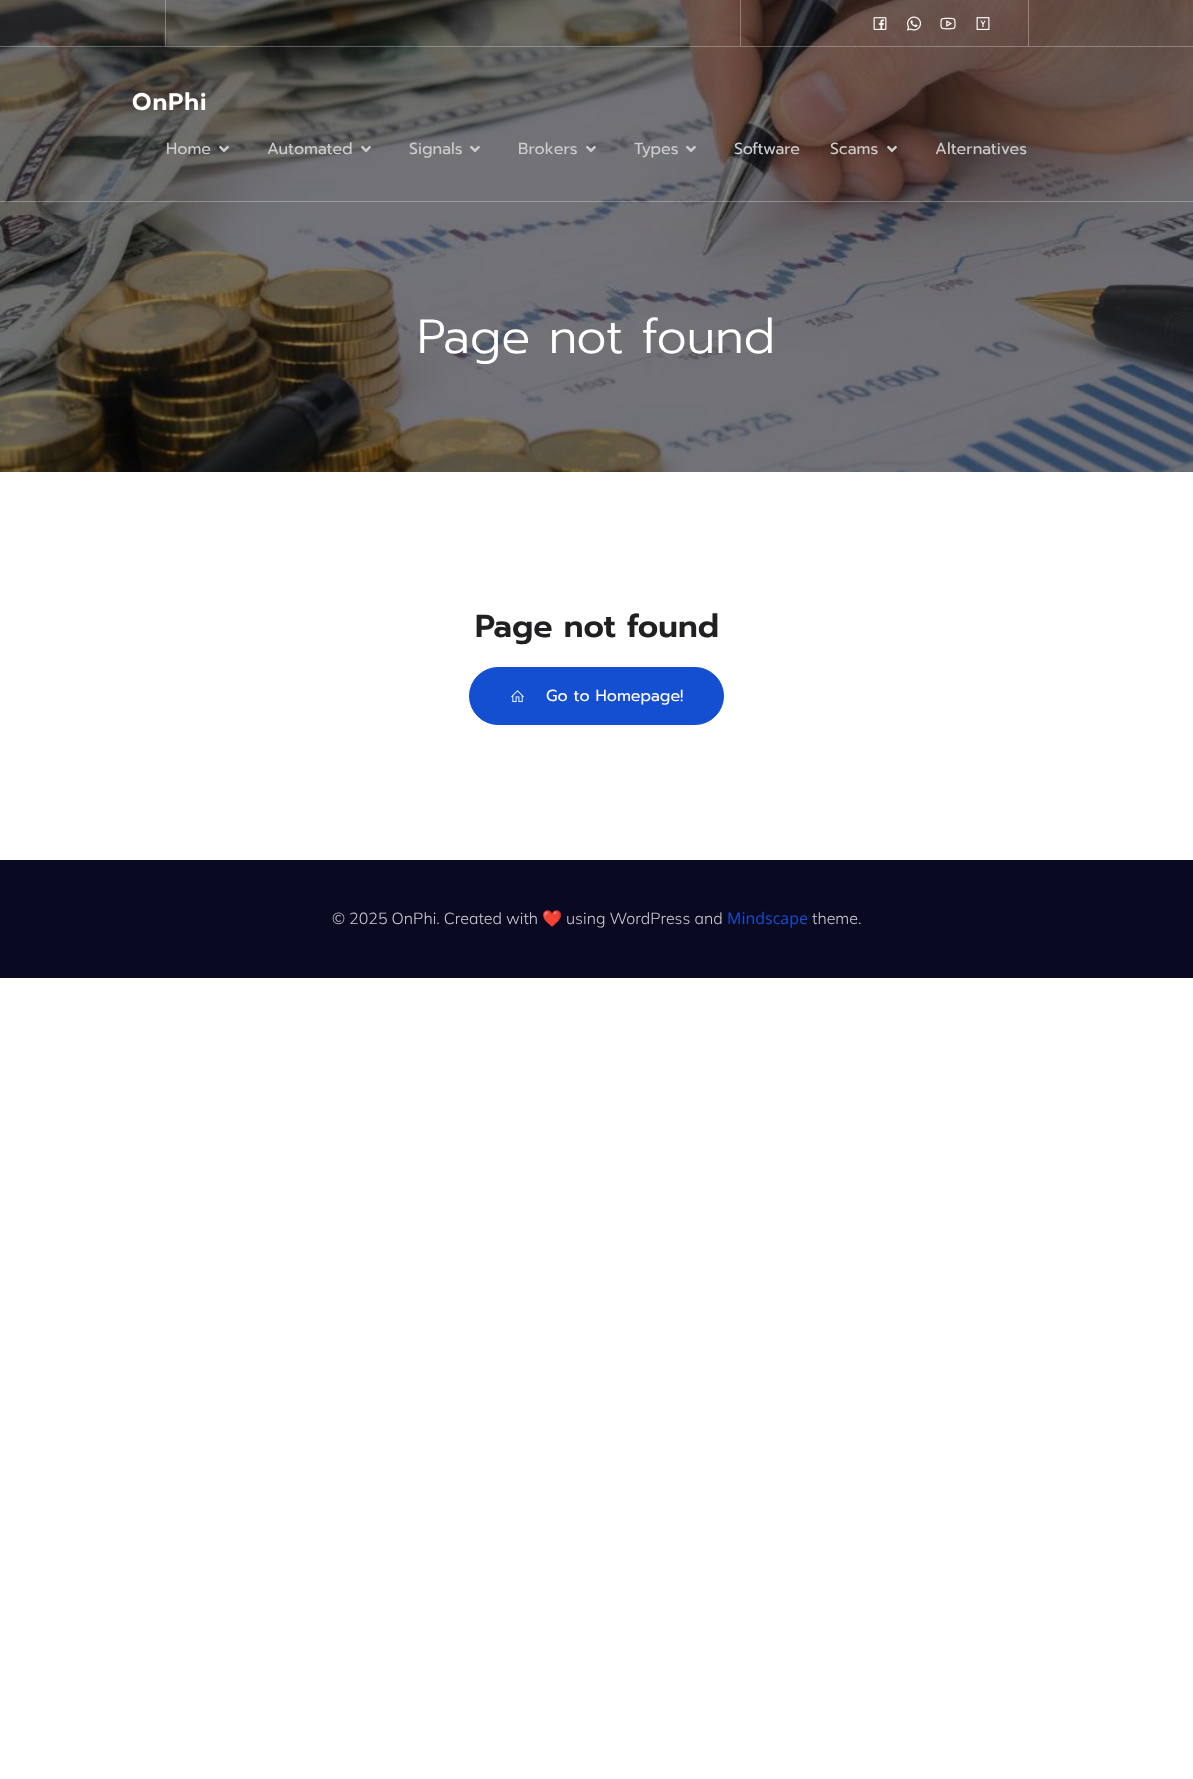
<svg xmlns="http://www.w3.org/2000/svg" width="1193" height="1779">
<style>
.a{font:600 24px Prompt;letter-spacing:1px;fill:#fff}
.b{font:16px Prompt;fill:#ccc}
.c{font:300 48px Prompt;fill:#fff}
.d{font:600 32px Prompt;fill:#202022}
.e{font:16px Prompt;fill:#fff}
.f{font:300 16px Mulish;fill:#ceced3}
.g{font:16px Noto Color Emoji;fill:#ceced3}
.h{font:16px Open Sans;fill:#144fd1}
</style>
<rect width="100%" height="100%" fill="#fff"/>
<image href="11.png" x="0" y="0" width="1193" height="472"/>
<path fill="#ffffff4d" d="M0 46h1193v1H0z"/>
<path fill="#ffffff4d" d="M740 0h1v46H740z"/>
<path fill="#ffffff4d" d="M165 0h1v46H165z"/>
<path fill="#ffffff4d" d="M1028 0h1v46H1028z"/>
<image href="1.png" x="873" y="17" width="14" height="13"/>
<image href="2.png" x="907" y="16" width="14" height="15"/>
<image href="3.png" x="940" y="17" width="16" height="13"/>
<image href="4.png" x="976" y="17" width="14" height="13"/>
<path fill="#ffffff4d" d="M0 201h1193v1H0z"/>
<image href="5.png" x="219" y="145" width="10" height="8"/>
<image href="6.png" x="361" y="145" width="10" height="8"/>
<image href="7.png" x="470" y="145" width="10" height="8"/>
<image href="8.png" x="586" y="145" width="10" height="8"/>
<image href="9.png" x="686" y="145" width="10" height="8"/>
<image href="10.png" x="887" y="145" width="10" height="8"/>
<rect fill="#144fd1" stroke="#144fd1" x="469.5" y="667.5" width="254" height="57" rx="28.5"/>
<image href="12.png" x="511" y="690" width="13" height="13"/>
<path fill="#090921" d="M0 860h1193v118H0z"/>
<text class="a" x="132" y="110">OnPhi</text>
<text class="b" x="166" y="154">Home</text>
<text class="b" x="267" y="154">Automated</text>
<text class="b" x="409" y="154">Signals</text>
<text class="b" x="518" y="154">Brokers</text>
<text class="b" x="634" y="154">Types</text>
<text class="b" x="734" y="154">Software</text>
<text class="b" x="830" y="154">Scams</text>
<text class="b" x="935" y="154">Alternatives</text>
<text class="c" x="417" y="353">Page not found</text>
<text class="d" x="475" y="637">Page not found</text>
<text class="e" x="546" y="701">Go to Homepage!</text>
<text class="f" x="332" y="924">© 2025 OnPhi. Created with</text>
<text class="g" x="542" y="924">❤️</text>
<text class="f" x="566" y="924">using WordPress and</text>
<text class="h" x="727" y="924">Mindscape</text>
<text class="f" x="812" y="924">theme.</text>
</svg>
